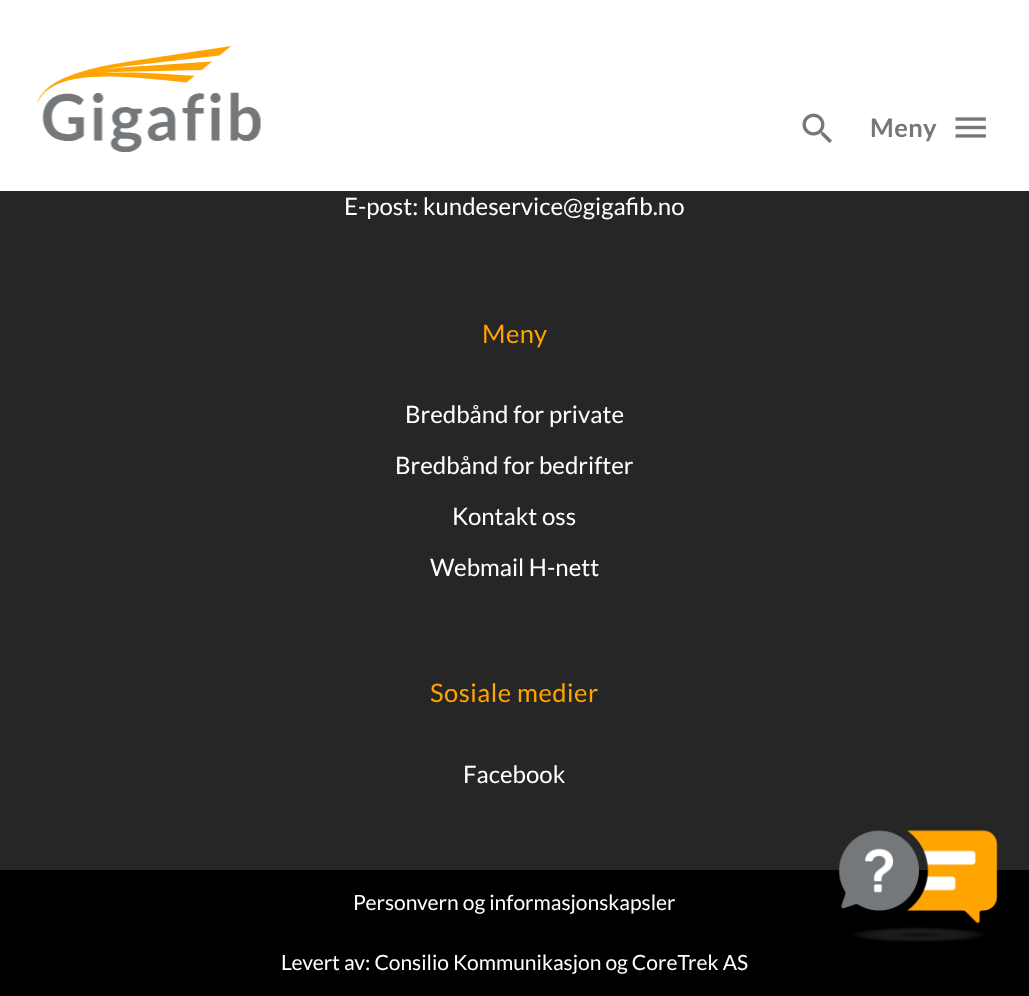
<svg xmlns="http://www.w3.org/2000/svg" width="1029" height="996">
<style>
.a{font:bold 25.5px Lato;letter-spacing:0.5px;fill:#75787b}
.b{font:24px Lato;fill:#fff}
.c{font:25.5px Lato;letter-spacing:0.5px;fill:#ffa400}
.d{font:21px Lato;fill:#fff}
</style>
<rect width="100%" height="100%" fill="#262626"/>
<path fill="#fff" d="M0 0h1029v191H0z"/>
<image href="1.png" x="37" y="46" width="225" height="107"/>
<image href="2.png" x="802" y="113" width="30" height="30"/>
<image href="3.png" x="955" y="117" width="31" height="21"/>
<path fill="#000" d="M0 870h1029v126H0z"/>
<image href="4.png" x="838" y="830" width="160" height="112"/>
<text class="a" x="870" y="137">Meny</text>
<text class="b" x="344" y="215">E-post: kundeservice@gigafib.no</text>
<text class="c" x="482" y="343">Meny</text>
<text class="b" x="405" y="423">Bredbånd for private</text>
<text class="b" x="395" y="474">Bredbånd for bedrifter</text>
<text class="b" x="452" y="525">Kontakt oss</text>
<text class="b" x="430" y="576">Webmail H-nett</text>
<text class="c" x="430" y="702">Sosiale medier</text>
<text class="b" x="463" y="783">Facebook</text>
<text class="d" x="353" y="910">Personvern og informasjonskapsler</text>
<text class="d" x="281" y="970">Levert av: Consilio Kommunikasjon og CoreTrek AS</text>
</svg>
